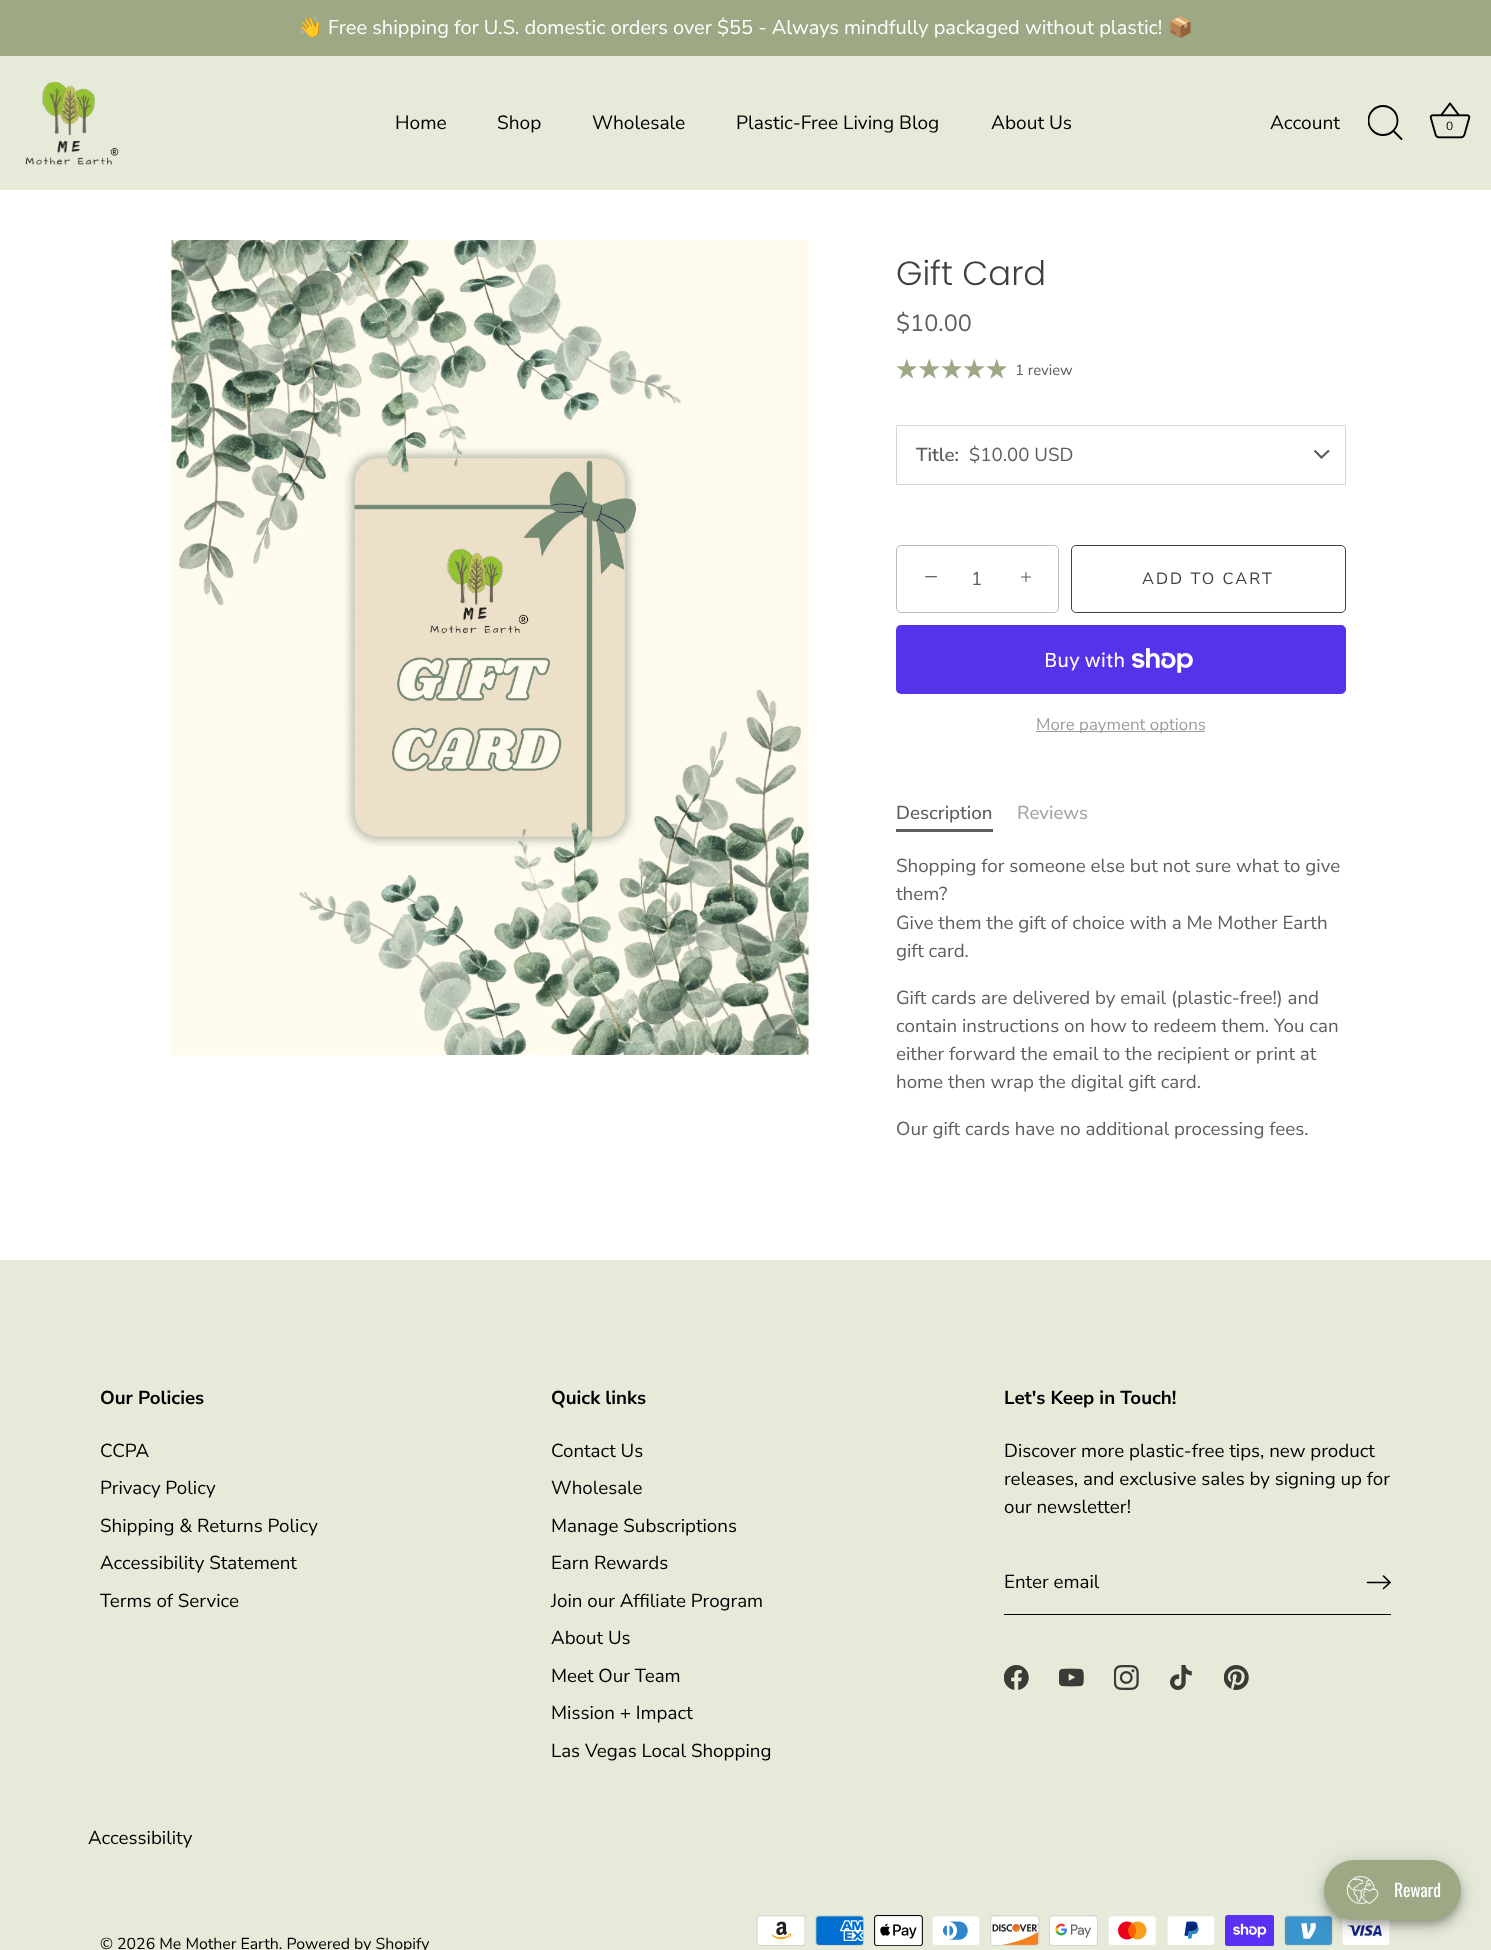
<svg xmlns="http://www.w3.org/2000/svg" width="1491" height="1950">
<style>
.a{font:20px Noto Color Emoji;fill:#fff}
.b{font:20px Nunito Sans;fill:#fff}
.c{font:19.1px Nunito Sans;fill:#000}
.d{font:12px Nunito Sans;fill:#000}
.e{font:300 33.75px Poppins;fill:#423f3f}
.f{font:23.5px Nunito Sans;fill:#5e5c5c}
.g{font:15px Nunito Sans;fill:#5e5c5c}
.h{font:600 18.75px Nunito Sans;fill:#5e5c5c}
.i{font:18.75px Nunito Sans;fill:#5e5c5c}
.j{font:25px Liberation Serif;fill:#5e5c5c}
.k{font:18.75px Nunito Sans;letter-spacing:1px;fill:#5e5c5c}
.l{font:21px Liberation Serif;fill:#5e5c5c}
.m{font:16.25px Nunito Sans;letter-spacing:2.1px;fill:#423f3f}
.n{font:20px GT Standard;fill:#fff}
.o{font:16.9px Nunito Sans;fill:#9e9d9d}
.p{font:500 18.75px Nunito Sans;fill:#5e5c5c}
.q{font:500 18.75px Nunito Sans;fill:#a6a5a5}
.r{font:bold 18.75px Nunito Sans;fill:#000}
.s{font:18.75px Nunito Sans;fill:#000}
.t{font:15.9px Nunito Sans;fill:#000}
.u{font:17.5px Oswald;fill:#fff}
</style>
<defs>
<clipPath id="clip1"><path d="M1368 105h36v36H1368z"/></clipPath>
</defs>
<rect width="100%" height="100%" fill="#fff"/>
<path fill="#e5ead9" d="M0 56h1491v134H0z"/>
<path fill="#9da985" d="M0 0h1491v56H0z"/>
<image href="1.png" x="25" y="82" width="94" height="83"/>
<g clip-path="url(#clip1)">
<circle fill="none" stroke="#000" stroke-width="1.8" cx="1383" cy="120.5" r="14.5"/>
</g>
<path fill="none" stroke="#000" stroke-width="1.8" stroke-linecap="round" stroke-linejoin="round" d="M1401.5 139l-8-8"/>
<image href="2.png" x="1429" y="102" width="42" height="37"/>
<image href="3.png" x="171" y="240" width="638" height="815"/>
<image href="4.png" x="896" y="359" width="20" height="20"/>
<image href="5.png" x="919" y="359" width="20" height="20"/>
<image href="4.png" x="941" y="359" width="20" height="20"/>
<image href="5.png" x="964" y="359" width="20" height="20"/>
<image href="4.png" x="986" y="359" width="20" height="20"/>
<image href="6.png" x="896" y="359" width="20" height="20"/>
<image href="7.png" x="919" y="359" width="20" height="20"/>
<image href="6.png" x="941" y="359" width="20" height="20"/>
<image href="7.png" x="964" y="359" width="20" height="20"/>
<image href="6.png" x="986" y="359" width="20" height="20"/>
<path fill="none" stroke="#d7d6d6" d="M896.5 425.5h449v59H896.5z"/>
<path fill="none" stroke="#5e5c5c" stroke-width="2.3" d="M1329 450.5l-7.5 7l-7-7"/>
<rect fill="none" stroke="#bbb" x="896.5" y="545.5" width="162" height="67" rx="4.5"/>
<rect fill="none" stroke="#423f3f" x="1071.5" y="545.5" width="274" height="67" rx="4.5"/>
<rect fill="#5433eb" x="896" y="625" width="450" height="69" rx="5"/>
<image href="8.png" x="1131" y="648" width="62" height="25"/>
<path fill="#9e9d9d" d="M1036 731h169v1H1036z"/>
<path fill="#5e5c5c" d="M896 829h97v3H896z"/>
<path fill="#e5ead9" d="M0 1260h1491v690H0z"/>
<path fill="#000" d="M1004 1614h387v1H1004z"/>
<path fill="none" stroke="#000" stroke-width="1.6" stroke-linecap="round" d="M1383.5 1588.5l6.5-6l-6.5-6.5"/>
<path fill="none" stroke="#000" stroke-width="1.6" stroke-linecap="round" stroke-linejoin="round" d="M1389 1582.5h-21.5"/>
<image href="9.png" x="1004" y="1665" width="25" height="25"/>
<image href="10.png" x="1059" y="1668" width="25" height="19"/>
<image href="11.png" x="1114" y="1665" width="25" height="25"/>
<image href="12.png" x="1170" y="1665" width="22" height="25"/>
<image href="13.png" x="1224" y="1665" width="25" height="25"/>
<image href="14.png" x="756" y="1915" width="49" height="31"/>
<image href="15.png" x="815" y="1915" width="49" height="31"/>
<image href="16.png" x="874" y="1915" width="49" height="31"/>
<image href="17.png" x="932" y="1916" width="48" height="29"/>
<image href="18.png" x="990" y="1915" width="50" height="31"/>
<image href="19.png" x="1049" y="1915" width="49" height="31"/>
<image href="20.png" x="1108" y="1916" width="48" height="29"/>
<image href="21.png" x="1167" y="1916" width="48" height="29"/>
<image href="22.png" x="1225" y="1915" width="49" height="31"/>
<image href="23.png" x="1284" y="1915" width="49" height="31"/>
<image href="24.png" x="1342" y="1917" width="48" height="28"/>
<rect fill="#0000001f" filter="blur(11px)" x="1324" y="1861" width="137" height="60" rx="30"/>
<rect fill="#00000024" filter="blur(6px)" x="1324" y="1868" width="137" height="60" rx="30"/>
<rect fill="#00000033" filter="blur(3px)" x="1325" y="1865" width="135" height="58" rx="29"/>
<rect fill="#9da985" x="1324" y="1860" width="137" height="60" rx="30"/>
<image href="25.png" x="1346" y="1876" width="33" height="29"/>
<text class="a" x="298" y="34">👋</text>
<text class="b" x="328" y="34">Free shipping for U.S. domestic orders over $55 - Always mindfully packaged without plastic!</text>
<text class="a" x="1168" y="34">📦</text>
<text class="c" x="395" y="129">Home</text>
<text class="c" x="497" y="129">Shop</text>
<text class="c" x="592" y="129">Wholesale</text>
<text class="c" x="736" y="129">Plastic-Free Living Blog</text>
<text class="c" x="991" y="129">About Us</text>
<text class="c" x="1270" y="129">Account</text>
<text class="d" x="1446" y="130">0</text>
<text class="e" x="896" y="285">Gift Card</text>
<text class="f" x="896" y="331">$10.00</text>
<text class="g" x="1015" y="375">1 review</text>
<text class="h" x="916" y="461">Title:</text>
<text class="i" x="969" y="461">$10.00 USD</text>
<text class="j" x="924" y="585">−</text>
<text class="k" x="971" y="585">1</text>
<text class="l" x="1020" y="584">+</text>
<text class="m" x="1142" y="584">ADD TO CART</text>
<text class="n" x="1044" y="667">Buy with</text>
<text class="o" x="1036" y="730">More payment options</text>
<text class="p" x="896" y="819">Description</text>
<text class="q" x="1017" y="819">Reviews</text>
<text class="i" x="896" y="872">Shopping for someone else but not sure what to give</text>
<text class="i" x="896" y="900">them?</text>
<text class="i" x="896" y="929">Give them the gift of choice with a Me Mother Earth</text>
<text class="i" x="896" y="957">gift card.</text>
<text class="i" x="896" y="1004">Gift cards are delivered by email (plastic-free!) and</text>
<text class="i" x="896" y="1032">contain instructions on how to redeem them. You can</text>
<text class="i" x="896" y="1060">either forward the email to the recipient or print at</text>
<text class="i" x="896" y="1088">home then wrap the digital gift card.</text>
<text class="i" x="896" y="1135">Our gift cards have no additional processing fees.</text>
<text class="r" x="100" y="1404">Our Policies</text>
<text class="s" x="100" y="1457">CCPA</text>
<text class="s" x="100" y="1494">Privacy Policy</text>
<text class="s" x="100" y="1532">Shipping &amp; Returns Policy</text>
<text class="s" x="100" y="1569">Accessibility Statement</text>
<text class="s" x="100" y="1607">Terms of Service</text>
<text class="r" x="551" y="1404">Quick links</text>
<text class="s" x="551" y="1457">Contact Us</text>
<text class="s" x="551" y="1494">Wholesale</text>
<text class="s" x="551" y="1532">Manage Subscriptions</text>
<text class="s" x="551" y="1569">Earn Rewards</text>
<text class="s" x="551" y="1607">Join our Affiliate Program</text>
<text class="s" x="551" y="1644">About Us</text>
<text class="s" x="551" y="1682">Meet Our Team</text>
<text class="s" x="551" y="1719">Mission + Impact</text>
<text class="s" x="551" y="1757">Las Vegas Local Shopping</text>
<text class="r" x="1004" y="1404">Let's Keep in Touch!</text>
<text class="s" x="1004" y="1457">Discover more plastic-free tips, new product</text>
<text class="s" x="1004" y="1485">releases, and exclusive sales by signing up for</text>
<text class="s" x="1004" y="1513">our newsletter!</text>
<text class="s" x="1004" y="1588">Enter email</text>
<text class="s" x="88" y="1844">Accessibility</text>
<text class="t" x="100" y="1949">© 2026 Me Mother Earth. Powered by Shopify</text>
<text class="u" x="1394" y="1897">Reward</text>
</svg>
